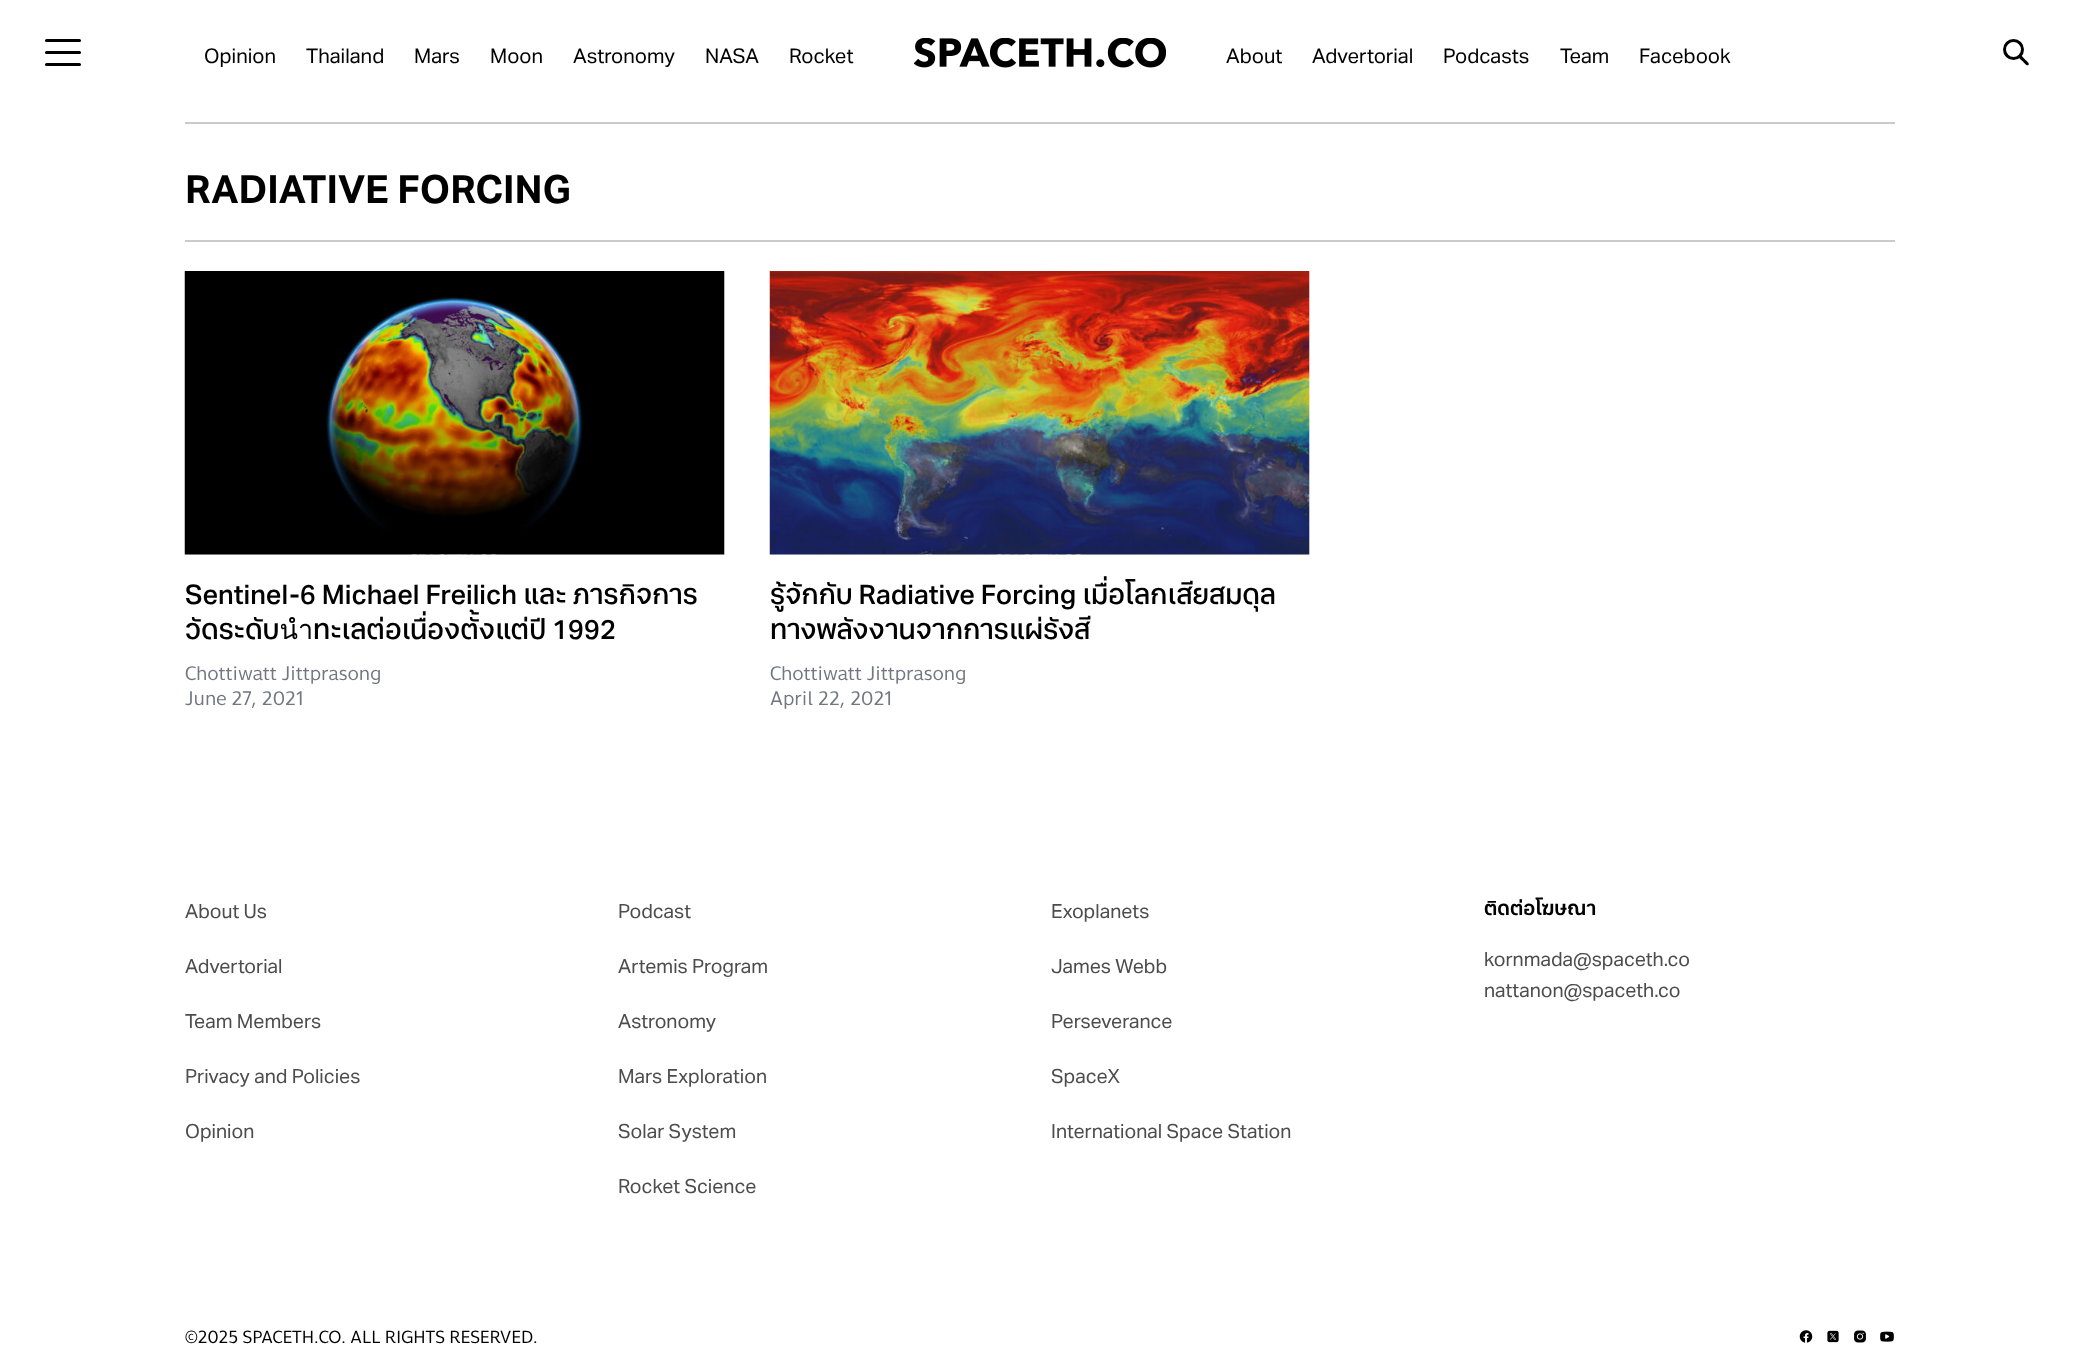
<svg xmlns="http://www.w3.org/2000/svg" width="2079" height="1361">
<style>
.a{font:20.25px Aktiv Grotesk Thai;fill:#000}
.b{font:bold 39px Aktiv Grotesk Thai;fill:#000}
.c{font:500 27px Aktiv Grotesk Thai;fill:#000}
.d{font:19.25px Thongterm;fill:#71767f}
.e{font:19.5px Aktiv Grotesk Thai;fill:#4d4d4d}
.f{font:bold 19px Aktiv Grotesk Thai;fill:#000}
.g{font:17.25px Thongterm;fill:#000}
</style>
<rect width="100%" height="100%" fill="#fff"/>
<rect fill="#000" x="45" y="51" width="36" height="3" rx="1.5"/>
<rect fill="#000" x="45" y="39" width="36" height="3" rx="1.5"/>
<rect fill="#000" x="45" y="63" width="36" height="3" rx="1.5"/>
<image href="1.png" x="914" y="38" width="252" height="30"/>
<path fill="#000" d="M2019.5 56c1.5-2 4.5 2.5 5.5 3.5c1 1 5 3.5 3.5 5.5c-2 1.5-4.5-2.5-5.5-3.5c-1-1-5.5-4-3.5-5.5z"/>
<circle fill="none" stroke="#000" stroke-width="3" cx="2013.5" cy="49.5" r="9"/>
<path fill="#cacaca" d="M185 122h1710v2H185z"/>
<path fill="#cacaca" d="M185 240h1710v2H185z"/>
<path fill="#f5f5f7" d="M185 272h540v283H185z"/>
<image href="2.png" x="184" y="271" width="541" height="284"/>
<path fill="#f5f5f7" d="M770 272h540v283H770z"/>
<image href="3.png" x="769" y="271" width="541" height="284"/>
<image href="4.png" x="1799" y="1330" width="14" height="13"/>
<image href="5.png" x="1827" y="1330" width="12" height="13"/>
<image href="6.png" x="1854" y="1330" width="12" height="13"/>
<image href="7.png" x="1880" y="1331" width="14" height="11"/>
<text class="a" x="204" y="63">Opinion</text>
<text class="a" x="306" y="63">Thailand</text>
<text class="a" x="414" y="63">Mars</text>
<text class="a" x="490" y="63">Moon</text>
<text class="a" x="573" y="63">Astronomy</text>
<text class="a" x="705" y="63">NASA</text>
<text class="a" x="789" y="63">Rocket</text>
<text class="a" x="1226" y="63">About</text>
<text class="a" x="1312" y="63">Advertorial</text>
<text class="a" x="1443" y="63">Podcasts</text>
<text class="a" x="1560" y="63">Team</text>
<text class="a" x="1639" y="63">Facebook</text>
<text class="b" x="185" y="203">RADIATIVE FORCING</text>
<text class="c" x="185" y="604">Sentinel-6 Michael Freilich และ ภารกิจการ</text>
<text class="c" x="185" y="639">วัดระดับนำทะเลต่อเนื่องตั้งแต่ปี 1992</text>
<text class="d" x="185" y="680">Chottiwatt Jittprasong</text>
<text class="d" x="185" y="705">June 27, 2021</text>
<text class="c" x="770" y="604">รู้จักกับ Radiative Forcing เมื่อโลกเสียสมดุล</text>
<text class="c" x="770" y="639">ทางพลังงานจากการแผ่รังสี</text>
<text class="d" x="770" y="680">Chottiwatt Jittprasong</text>
<text class="d" x="770" y="705">April 22, 2021</text>
<text class="e" x="185" y="918">About Us</text>
<text class="e" x="185" y="973">Advertorial</text>
<text class="e" x="185" y="1028">Team Members</text>
<text class="e" x="185" y="1083">Privacy and Policies</text>
<text class="e" x="185" y="1138">Opinion</text>
<text class="e" x="618" y="918">Podcast</text>
<text class="e" x="618" y="973">Artemis Program</text>
<text class="e" x="618" y="1028">Astronomy</text>
<text class="e" x="618" y="1083">Mars Exploration</text>
<text class="e" x="618" y="1138">Solar System</text>
<text class="e" x="618" y="1193">Rocket Science</text>
<text class="e" x="1051" y="918">Exoplanets</text>
<text class="e" x="1051" y="973">James Webb</text>
<text class="e" x="1051" y="1028">Perseverance</text>
<text class="e" x="1051" y="1083">SpaceX</text>
<text class="e" x="1051" y="1138">International Space Station</text>
<text class="f" x="1484" y="915">ติดต่อโฆษณา</text>
<text class="e" x="1484" y="966">kornmada@spaceth.co</text>
<text class="e" x="1484" y="997">nattanon@spaceth.co</text>
<text class="g" x="185" y="1343">©2025 SPACETH.CO. ALL RIGHTS RESERVED.</text>
</svg>
